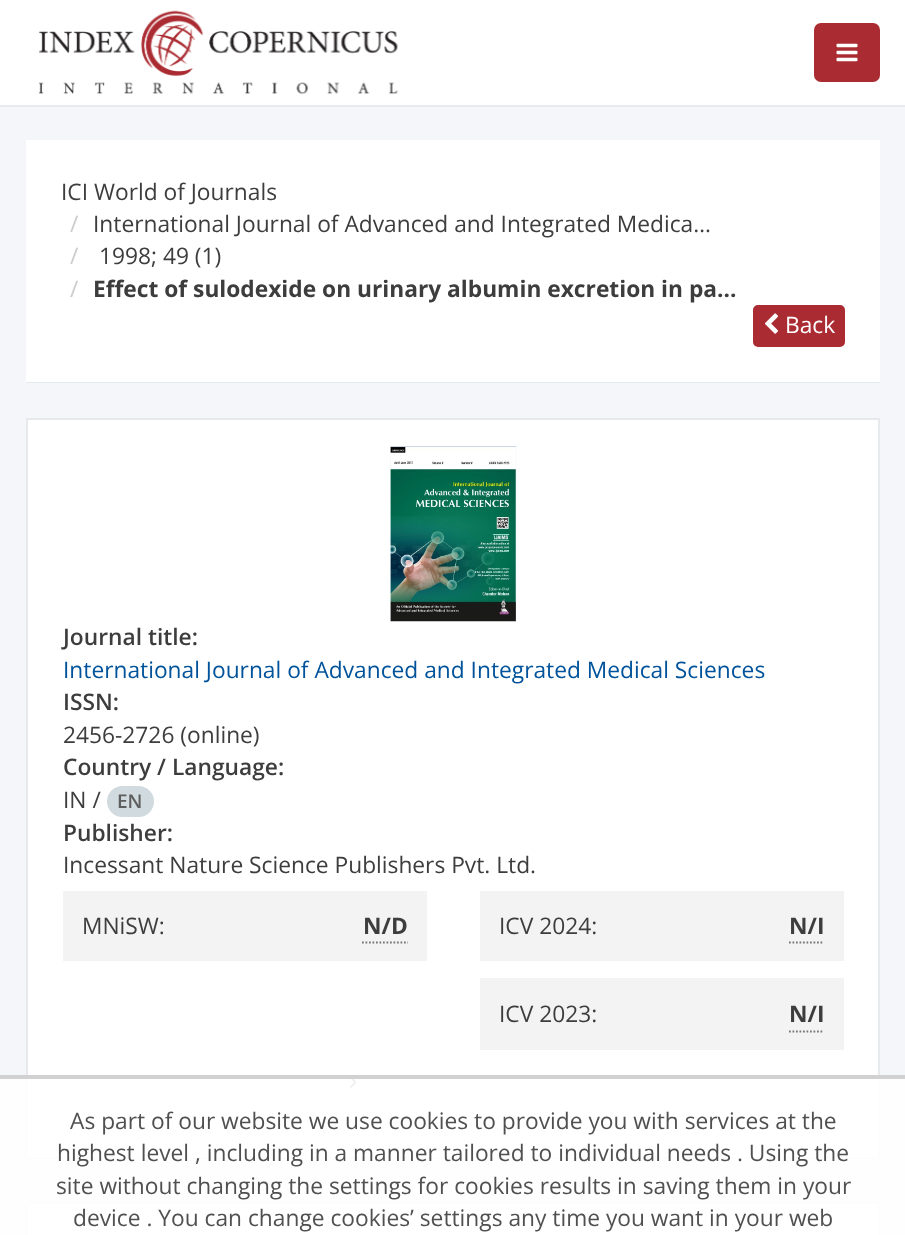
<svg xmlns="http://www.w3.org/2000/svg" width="905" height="1235">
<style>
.a{font:22.75px Open Sans;fill:#3d3d3d}
.b{font:22.75px Open Sans;fill:#ccc}
.c{font:bold 22.75px Open Sans;fill:#3d3d3d}
.d{font:22.75px Open Sans;fill:#fff}
.e{font:600 22.75px Open Sans;fill:#3d3d3d}
.f{font:22.75px Open Sans;fill:#00539b}
.g{font:600 19px Open Sans;fill:#5e5e5e}
.h{font:22.75px Open Sans;fill:#505050}
</style>
<rect width="100%" height="100%" fill="#f4f6fa"/>
<path fill="#fff" d="M0 0h905v105H0z"/>
<path fill="#e7eaec" d="M0 105h905v2H0z"/>
<image href="1.png" x="38" y="10" width="360" height="84"/>
<rect fill="#aa2b31" x="814" y="23" width="66" height="59" rx="7"/>
<image href="2.png" x="836" y="43" width="22" height="19"/>
<path fill="#fff" d="M26 140h854v242H26z"/>
<path fill="#e7eaec" d="M26 382h854v1H26z"/>
<rect fill="#aa2b31" stroke="#aa2b31" stroke-width="2" x="754" y="306" width="90" height="40" rx="4"/>
<image href="3.png" x="765" y="313" width="14" height="21"/>
<path fill="#fff" stroke="#e7eaec" stroke-width="2" d="M27 419h852v739H27z"/>
<image href="4.png" x="390" y="446" width="127" height="176"/>
<rect fill="#d1dade" x="107" y="786" width="47" height="31" rx="15.5"/>
<path fill="#f3f3f4" d="M63 891h364v70H63z"/>
<path fill="none" stroke="#777" stroke-width="1.8" stroke-dasharray="1.75 1.75" d="M362 942.5h46"/>
<path fill="#f3f3f4" d="M480 891h364v70H480z"/>
<path fill="none" stroke="#777" stroke-width="1.8" stroke-dasharray="1.75 1.75" d="M789 942.5h35"/>
<path fill="#f3f3f4" d="M480 978h364v72H480z"/>
<path fill="none" stroke="#777" stroke-width="1.8" stroke-dasharray="1.75 1.75" d="M789 1031.5h35"/>
<image href="5.png" x="350" y="1077" width="7" height="11"/>
<path fill="#fff" stroke="#e7eaec" stroke-width="2" d="M27 1203h852v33H27z"/>
<path fill="#ffffffe6" d="M0 1075h905v160H0z"/>
<path fill="#cccccce6" d="M0 1075h905v4H0z"/>
<text class="a" x="61" y="200">ICI World of Journals</text>
<text class="b" x="70" y="232">/</text>
<text class="a" x="93" y="232">International Journal of Advanced and Integrated Medica…</text>
<text class="b" x="70" y="264">/</text>
<text class="a" x="99" y="264">1998; 49 (1)</text>
<text class="b" x="70" y="297">/</text>
<text class="c" x="93" y="297">Effect of sulodexide on urinary albumin excretion in pa…</text>
<text class="d" x="785" y="333">Back</text>
<text class="e" x="63" y="645">Journal title:</text>
<text class="f" x="63" y="678">International Journal of Advanced and Integrated Medical Sciences</text>
<text class="e" x="63" y="710">ISSN:</text>
<text class="a" x="63" y="743">2456-2726 (online)</text>
<text class="e" x="63" y="775">Country / Language:</text>
<text class="a" x="63" y="808">IN /</text>
<text class="g" x="117" y="808">EN</text>
<text class="e" x="63" y="841">Publisher:</text>
<text class="a" x="63" y="873">Incessant Nature Science Publishers Pvt. Ltd.</text>
<text class="a" x="82" y="934">MNiSW:</text>
<text class="c" x="363" y="934">N/D</text>
<text class="a" x="499" y="934">ICV 2024:</text>
<text class="c" x="789" y="934">N/I</text>
<text class="a" x="499" y="1022">ICV 2023:</text>
<text class="c" x="789" y="1022">N/I</text>
<text class="h" x="70" y="1129">As part of our website we use cookies to provide you with services at the</text>
<text class="h" x="57" y="1161">highest level , including in a manner tailored to individual needs . Using the</text>
<text class="h" x="56" y="1194">site without changing the settings for cookies results in saving them in your</text>
<text class="h" x="73" y="1226">device . You can change cookies’ settings any time you want in your web</text>
</svg>
